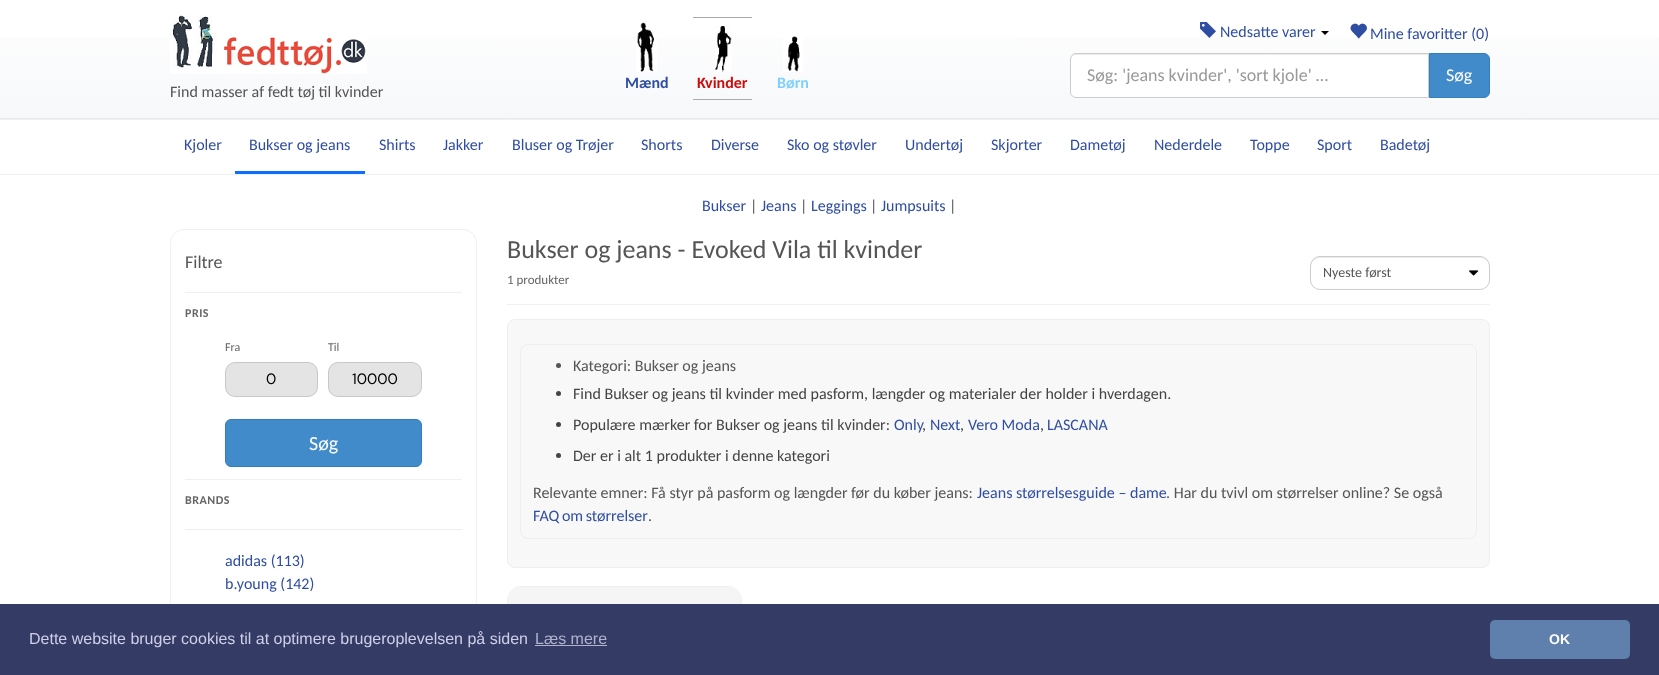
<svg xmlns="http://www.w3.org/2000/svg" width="1659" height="675">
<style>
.a{font:bold 16px Carlito;fill:#2f4da2}
.b{font:bold 16px Carlito;fill:#ca0e0e}
.c{font:bold 16px Carlito;fill:#80d0fe}
.d{font:16px Carlito;fill:#2f4da2}
.e{font:18px Carlito;fill:#999}
.f{font:18px Carlito;fill:#fff}
.g{font:16px Carlito;fill:#555}
.h{font:18px Carlito;fill:#555}
.i{font:bold 12px Carlito;letter-spacing:0.5px;fill:#666}
.j{font:12px Carlito;fill:#666}
.k{font:15px DM Sans;fill:#000}
.l{font:20px Carlito;fill:#fff}
.m{font:26px Carlito;fill:#555}
.n{font:13px Carlito;fill:#666}
.o{font:14px Carlito;fill:#555}
.p{font:16px Carlito;fill:#444}
.q{font:16px Liberation Sans;fill:#cfcfe8}
.r{font:16px Liberation Sans;fill:#b0b2ce}
.s{font:bold 14px Liberation Sans;fill:#fff}
</style>
<defs>
<linearGradient id="g1" gradientUnits="userSpaceOnUse" x1="830" y1="0" x2="830" y2="118"><stop offset="0" stop-color="#fff"/><stop offset="1" stop-color="#f7f8fa"/></linearGradient>
</defs>
<rect width="100%" height="100%" fill="#fff"/>
<path fill="url(#g1)" d="M0 37h1659v81H0z"/>
<path fill="#ebebeb" d="M0 118h1659v1H0z"/>
<image href="1.png" x="636" y="22" width="21" height="50"/>
<path fill="#aaa" d="M693 17h59v1H693z"/>
<path fill="#aaa" d="M693 99h59v1H693z"/>
<image href="2.png" x="715" y="26" width="17" height="46"/>
<image href="3.png" x="783" y="36" width="20" height="36"/>
<image href="4.png" x="1200" y="22" width="16" height="16"/>
<path fill="#000" d="M1321 31h8l-4 4z"/>
<image href="5.png" x="1350" y="23" width="17" height="16"/>
<path fill="#fff" d="M1076 53h353v45h-353c-3.5 0-6-2.5-6-6v-33c0-3.5 2.5-6 6-6z"/>
<path fill="#ececec" d="M1076 55h352v-1h-352c-3 0-5 2-5 5v1c0-3 2-5 5-5z"/>
<path fill="none" stroke="#ccc" d="M1076 53.5h352.5v44h-352.5c-3 0-5.5-2.5-5.5-5.5v-33c0-3 2.5-5.5 5.5-5.5z"/>
<path fill="#428bca" stroke="#357ebd" d="M1429.5 53.5h54.5c3 0 5.5 2.5 5.5 5.5v33c0 3-2.5 5.5-5.5 5.5h-54.5z"/>
<image href="6.png" x="170" y="15" width="197" height="59"/>
<path fill="#f0f0f0" d="M0 119h1659v1H0z"/>
<path fill="#f0f0f0" d="M0 174h1659v1H0z"/>
<path fill="#0d6efd" d="M235 171h130v3H235z"/>
<rect fill="none" stroke="#f0f0f0" x="170.5" y="229.5" width="306" height="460" rx="13.5"/>
<path fill="#f0f0f0" d="M185 292h277v1H185z"/>
<rect fill="#e4e4e4" x="225" y="362" width="93" height="35" rx="10"/>
<rect fill="none" stroke="#0000001f" x="225.5" y="362.5" width="92" height="34" rx="9.5"/>
<rect fill="#e4e4e4" x="328" y="362" width="94" height="35" rx="10"/>
<rect fill="none" stroke="#0000001f" x="328.5" y="362.5" width="93" height="34" rx="9.5"/>
<rect fill="#428bca" stroke="#357ebd" x="225.5" y="419.5" width="196" height="47" rx="5.5"/>
<path fill="#f0f0f0" d="M185 479h277v1H185z"/>
<path fill="#eee" d="M185 529h277v1H185z"/>
<path fill="#f0f0f0" d="M507 304h983v1H507z"/>
<image href="7.png" x="1469" y="270" width="10" height="6"/>
<path fill="#ececec" d="M1320 258h160c5 0 9 4 9 9v-1c0-5-4-9-9-9h-160c-5 0-9 4-9 9v1c0-5 4-9 9-9z"/>
<rect fill="none" stroke="#ccc" x="1310.5" y="256.5" width="179" height="33" rx="9.5"/>
<rect fill="#f8f8f8" stroke="#eee" x="507.5" y="319.5" width="982" height="248" rx="7.5"/>
<rect fill="none" stroke="#eee" x="520.5" y="344.5" width="956" height="194" rx="7.5"/>
<circle fill="#555" cx="558.5" cy="365.5" r="2.5"/>
<circle fill="#444" cx="558.5" cy="393.5" r="2.5"/>
<circle fill="#444" cx="558.5" cy="424.5" r="2.5"/>
<circle fill="#444" cx="558.5" cy="455.5" r="2.5"/>
<rect fill="none" stroke="#f0f0f0" x="507.5" y="586.5" width="234" height="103" rx="13.5"/>
<image href="8.png" x="508" y="587" width="233" height="17"/>
<path fill="#343c66" d="M0 604h1659v71H0z"/>
<path fill="#b0b2ce" d="M535 645h72v1H535z"/>
<rect fill="#5f7fad" x="1490" y="620" width="140" height="39" rx="5"/>
<text class="a" x="625" y="88">Mænd</text>
<text class="b" x="697" y="88">Kvinder</text>
<text class="c" x="777" y="88">Børn</text>
<text class="d" x="1220" y="37">Nedsatte varer</text>
<text class="d" x="1370" y="39">Mine favoritter (0)</text>
<text class="e" x="1087" y="81">Søg: 'jeans kvinder', 'sort kjole' …</text>
<text class="f" x="1446" y="81">Søg</text>
<text class="g" x="170" y="97">Find masser af fedt tøj til kvinder</text>
<text class="d" x="184" y="150">Kjoler</text>
<text class="d" x="249" y="150">Bukser og jeans</text>
<text class="d" x="379" y="150">Shirts</text>
<text class="d" x="443" y="150">Jakker</text>
<text class="d" x="512" y="150">Bluser og Trøjer</text>
<text class="d" x="641" y="150">Shorts</text>
<text class="d" x="711" y="150">Diverse</text>
<text class="d" x="787" y="150">Sko og støvler</text>
<text class="d" x="905" y="150">Undertøj</text>
<text class="d" x="991" y="150">Skjorter</text>
<text class="d" x="1070" y="150">Dametøj</text>
<text class="d" x="1154" y="150">Nederdele</text>
<text class="d" x="1250" y="150">Toppe</text>
<text class="d" x="1317" y="150">Sport</text>
<text class="d" x="1380" y="150">Badetøj</text>
<text class="d" x="702" y="211">Bukser</text>
<text class="g" x="750" y="211">|</text>
<text class="d" x="761" y="211">Jeans</text>
<text class="g" x="800" y="211">|</text>
<text class="d" x="811" y="211">Leggings</text>
<text class="g" x="870" y="211">|</text>
<text class="d" x="881" y="211">Jumpsuits</text>
<text class="g" x="949" y="211">|</text>
<text class="h" x="185" y="268">Filtre</text>
<text class="i" x="185" y="317">PRIS</text>
<text class="j" x="225" y="351">Fra</text>
<text class="k" x="266" y="384">0</text>
<text class="j" x="328" y="351">Til</text>
<text class="k" x="352" y="384">10000</text>
<text class="l" x="309" y="450">Søg</text>
<text class="i" x="185" y="504">BRANDS</text>
<text class="d" x="225" y="566">adidas (113)</text>
<text class="d" x="225" y="589">b.young (142)</text>
<text class="m" x="507" y="258">Bukser og jeans - Evoked Vila til kvinder</text>
<text class="n" x="507" y="284">1 produkter</text>
<text class="o" x="1323" y="277">Nyeste først</text>
<text class="g" x="573" y="371">Kategori: Bukser og jeans</text>
<text class="p" x="573" y="399">Find Bukser og jeans til kvinder med pasform, længder og materialer der holder i hverdagen.</text>
<text class="p" x="573" y="430">Populære mærker for Bukser og jeans til kvinder:</text>
<text class="d" x="894" y="430">Only</text>
<text class="d" x="930" y="430">Next</text>
<text class="d" x="968" y="430">Vero Moda</text>
<text class="d" x="1047" y="430">LASCANA</text>
<text class="p" x="922" y="430">,</text>
<text class="p" x="960" y="430">,</text>
<text class="p" x="1040" y="430">,</text>
<text class="p" x="573" y="461">Der er i alt 1 produkter i denne kategori</text>
<text class="g" x="533" y="498">Relevante emner: Få styr på pasform og længder før du køber jeans:</text>
<text class="d" x="977" y="498">Jeans størrelsesguide – dame</text>
<text class="g" x="1166" y="498">. Har du tvivl om størrelser online? Se også</text>
<text class="d" x="533" y="521" word-spacing="-1">FAQ om størrelser</text>
<text class="g" x="648" y="521">.</text>
<text class="q" x="29" y="644">Dette website bruger cookies til at optimere brugeroplevelsen på siden</text>
<text class="r" x="535" y="644">Læs mere</text>
<text class="s" x="1549" y="644">OK</text>
</svg>
